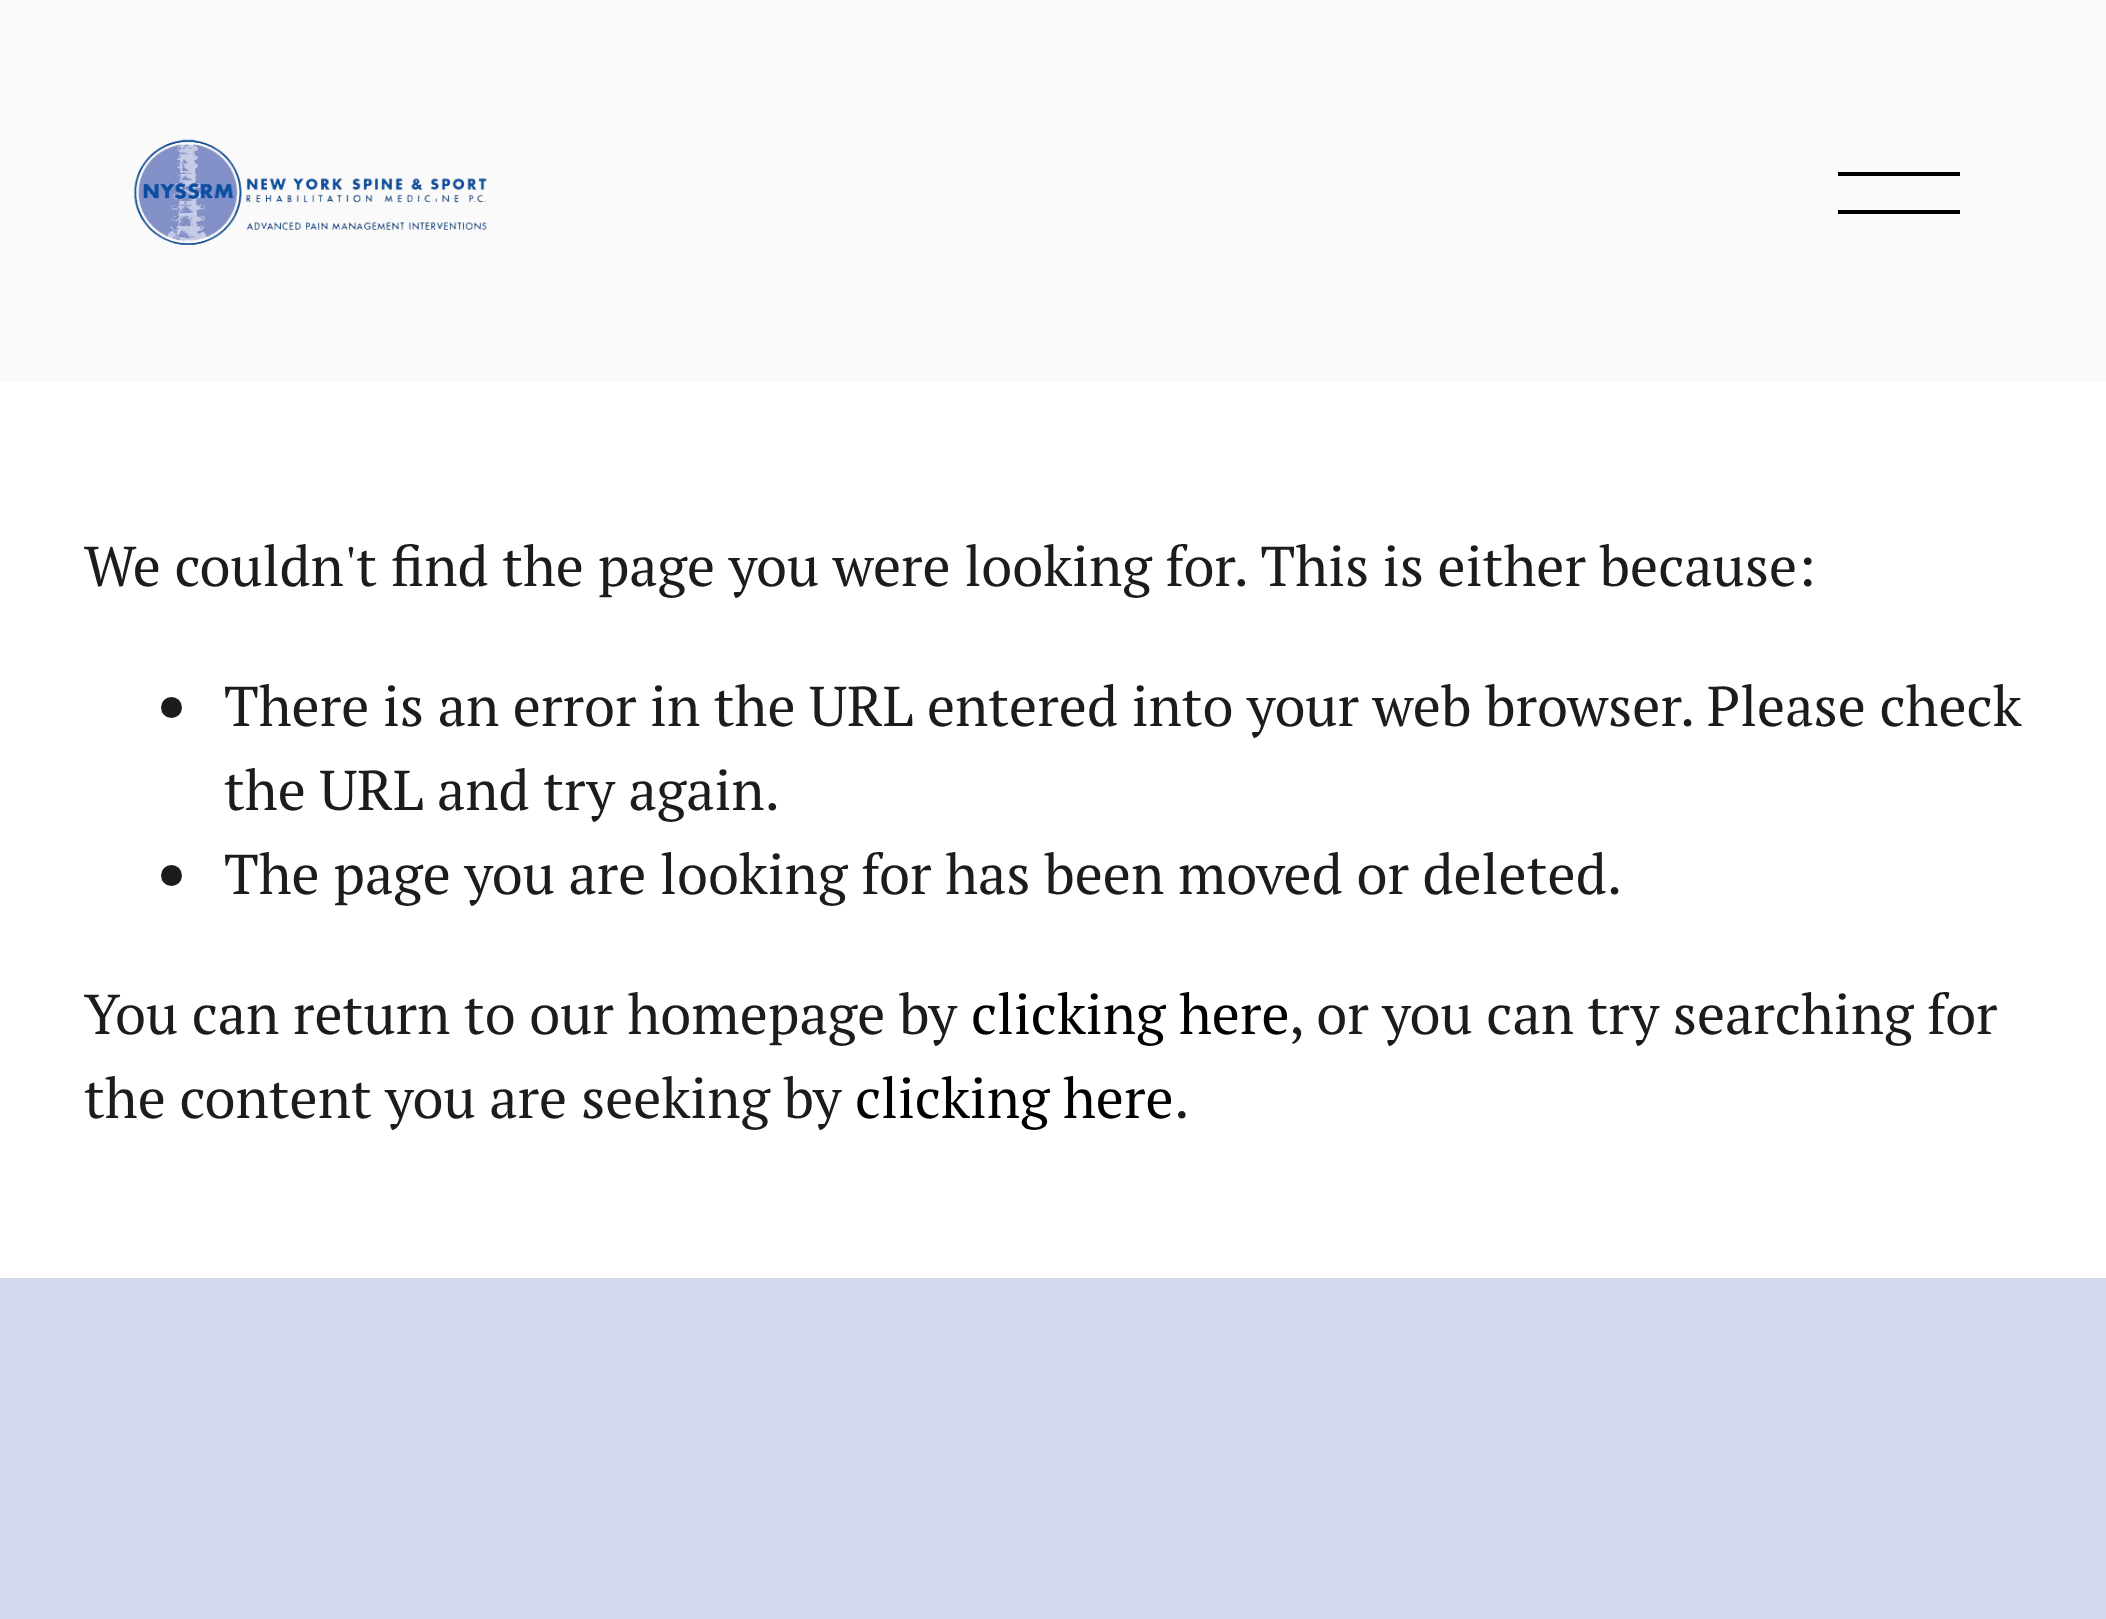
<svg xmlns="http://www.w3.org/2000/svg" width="2106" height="1619">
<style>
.a{font:56px PT Serif;fill:#1c1c1c}
.b{font:56px PT Serif;fill:#000}
</style>
<rect width="100%" height="100%" fill="#fff"/>
<path fill="#fafafa" d="M0 0h2106v382H0z"/>
<image href="1.png" x="134" y="139" width="353" height="106"/>
<path fill="#000" d="M1838 172h122v4H1838z"/>
<path fill="#000" d="M1838 210h122v4H1838z"/>
<circle fill="#1c1c1c" cx="171.5" cy="707.5" r="10.5"/>
<circle fill="#1c1c1c" cx="171.5" cy="875.5" r="10.5"/>
<path fill="#d5d9ed" d="M0 1278h2106v341H0z"/>
<text class="a" x="84" y="586">We couldn't find the page you were looking for. This is either because:</text>
<text class="a" x="224" y="726">There is an error in the URL entered into your web browser. Please check</text>
<text class="a" x="224" y="810">the URL and try again.</text>
<text class="a" x="224" y="894">The page you are looking for has been moved or deleted.</text>
<text class="a" x="84" y="1034">You can return to our homepage by</text>
<text class="b" x="971" y="1034">clicking here</text>
<text class="a" x="1289" y="1034">, or you can try searching for</text>
<text class="a" x="84" y="1118">the content you are seeking by</text>
<text class="b" x="855" y="1118">clicking here</text>
<text class="a" x="1174" y="1118">.</text>
</svg>
